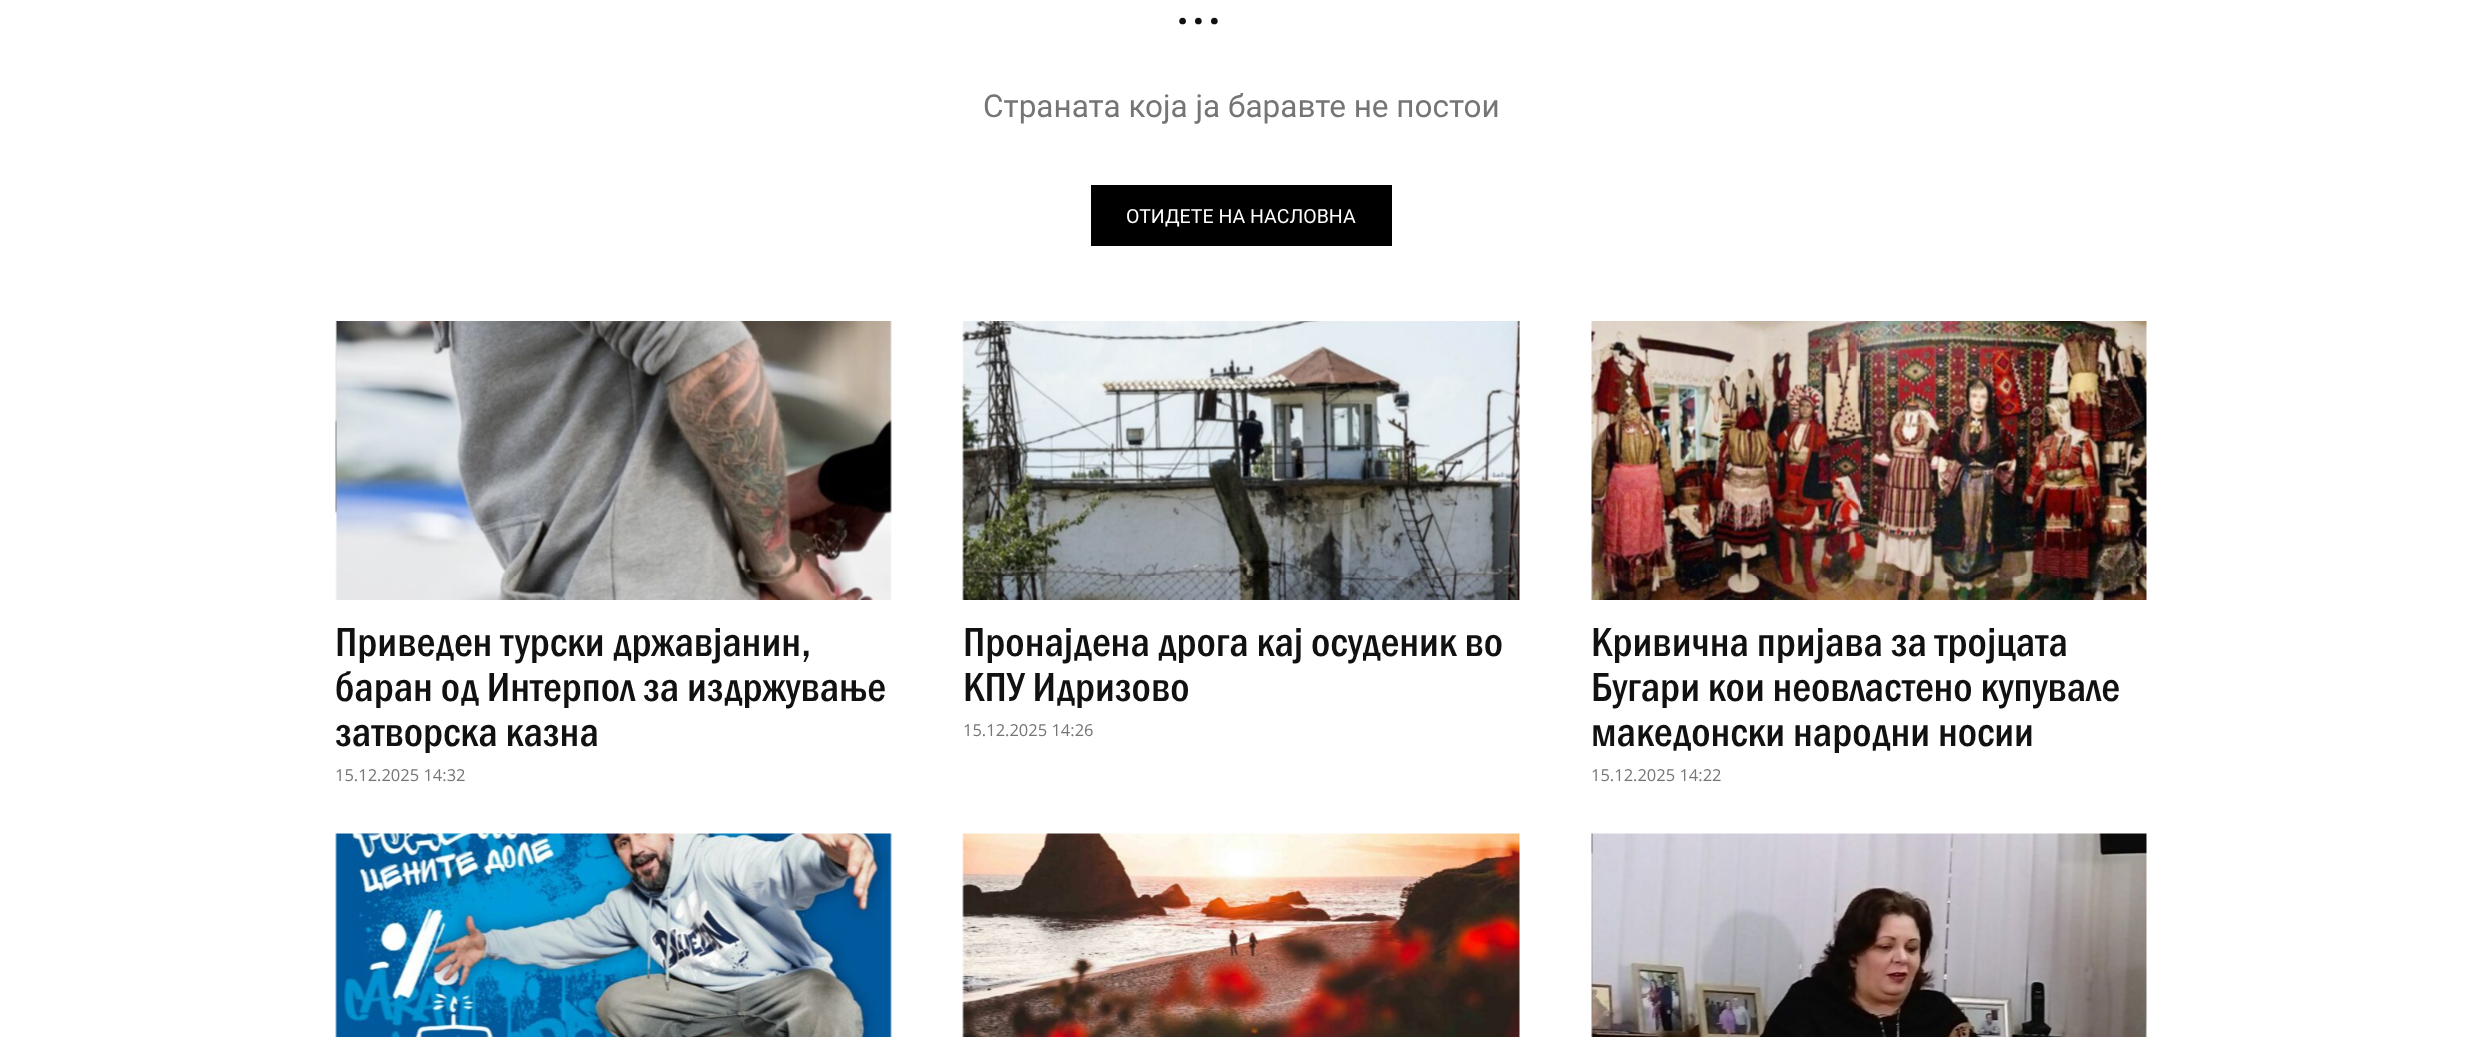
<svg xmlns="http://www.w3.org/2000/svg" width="2482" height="1037">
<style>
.a{font:60px Roboto;fill:#111}
.b{font:31.5px Roboto;fill:#757575}
.c{font:19.5px Roboto;fill:#fff}
.d{font:500 42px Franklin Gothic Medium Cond;fill:#111}
.e{font:16.5px Open Sans;fill:#757575}
</style>
<rect width="100%" height="100%" fill="#fff"/>
<path fill="#000" d="M1091 185h301v61H1091z"/>
<image href="1.png" x="335" y="321" width="557" height="279"/>
<image href="2.png" x="962" y="321" width="558" height="279"/>
<image href="3.png" x="1591" y="321" width="556" height="279"/>
<image href="4.png" x="335" y="833" width="557" height="204"/>
<image href="5.png" x="962" y="833" width="558" height="204"/>
<image href="6.png" x="1591" y="833" width="556" height="204"/>
<text class="a" x="1175" y="24">...</text>
<text class="b" x="983" y="117">Страната која ја баравте не постои</text>
<text class="c" x="1126" y="223">ОТИДЕТЕ НА НАСЛОВНА</text>
<text class="d" x="335" y="656">Приведен турски државјанин,</text>
<text class="d" x="335" y="701">баран од Интерпол за издржување</text>
<text class="d" x="335" y="746">затворска казна</text>
<text class="e" x="335" y="781">15.12.2025 14:32</text>
<text class="d" x="963" y="656">Пронајдена дрога кај осуденик во</text>
<text class="d" x="963" y="701">КПУ Идризово</text>
<text class="e" x="963" y="736">15.12.2025 14:26</text>
<text class="d" x="1591" y="656">Кривична пријава за тројцата</text>
<text class="d" x="1591" y="701">Бугари кои неовластено купувале</text>
<text class="d" x="1591" y="746">македонски народни носии</text>
<text class="e" x="1591" y="781">15.12.2025 14:22</text>
</svg>
